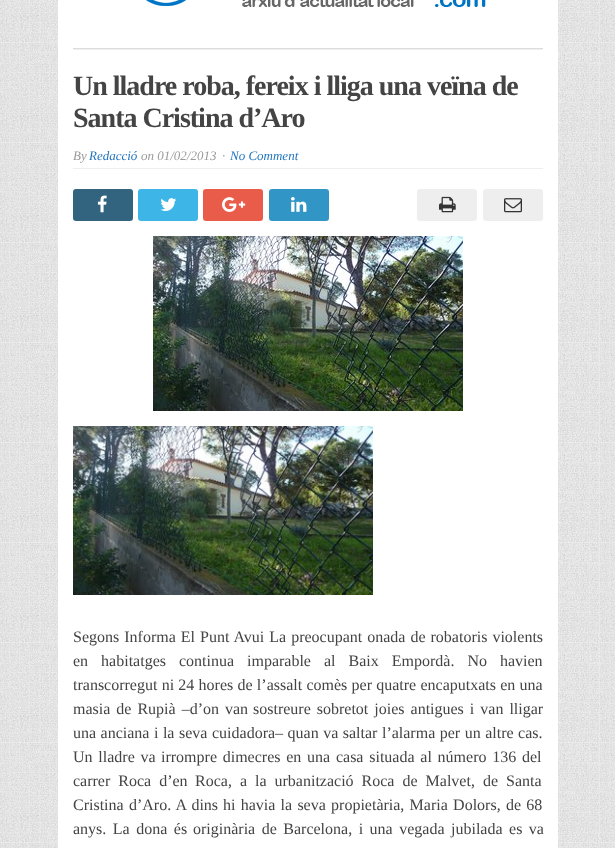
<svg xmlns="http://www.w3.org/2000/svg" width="615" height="848">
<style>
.a{font:bold 28px Liberation Serif;letter-spacing:-1px;fill:#444}
.b{font:italic 13px Liberation Serif;fill:#999}
.c{font:italic 13px Liberation Serif;fill:#1e73be}
.d{font:16px Liberation Serif;fill:#444}
</style>
<rect width="100%" height="100%" fill="#fff"/>
<image href="1.png" x="0" y="0" width="615" height="848"/>
<path fill="#fff" d="M58 0h500v848H58z"/>
<image href="2.png" x="146" y="0" width="340" height="7"/>
<path fill="#ddd" d="M73 48h470v1H73z"/>
<path fill="#efefef" d="M73 49h470v1H73z"/>
<path fill="#efefef" d="M73 168h470v1H73z"/>
<rect fill="#33647f" x="73" y="189" width="60" height="32" rx="3"/>
<image href="3.png" x="97" y="195" width="10" height="18"/>
<rect fill="#3db5e6" x="138" y="189" width="60" height="32" rx="3"/>
<image href="4.png" x="160" y="198" width="17" height="13"/>
<rect fill="#ea5c4a" x="203" y="189" width="60" height="32" rx="3"/>
<image href="5.png" x="222" y="197" width="24" height="15"/>
<rect fill="#3196c6" x="269" y="189" width="60" height="32" rx="3"/>
<image href="6.png" x="291" y="197" width="16" height="15"/>
<rect fill="#eee" x="417" y="189" width="60" height="32" rx="3"/>
<image href="7.png" x="439" y="196" width="17" height="17"/>
<rect fill="#eee" x="483" y="189" width="60" height="32" rx="3"/>
<image href="8.png" x="504" y="198" width="18" height="15"/>
<image href="9.png" x="153" y="236" width="310" height="175"/>
<image href="10.png" x="73" y="426" width="300" height="169"/>
<text class="a" x="73" y="95">Un lladre roba, fereix i lliga una veïna de</text>
<text class="a" x="73" y="127">Santa Cristina d’Aro</text>
<text class="b" x="73" y="160">By</text>
<text class="c" x="89" y="160">Redacció</text>
<text class="b" x="141" y="160">on 01/02/2013</text>
<text class="b" x="222" y="160">·</text>
<text class="c" x="230" y="160">No Comment</text>
<text class="d" x="73" y="642" word-spacing="1">Segons Informa El Punt Avui La preocupant onada de robatoris violents</text>
<text class="d" x="73" y="666" word-spacing="9">en habitatges continua</text>
<text class="d" x="247" y="666" word-spacing="9">imparable al Baix Empordà. No havien</text>
<text class="d" x="73" y="690" word-spacing="0.25">transcorregut ni 24 hores de l’assalt comès per quatre encaputxats en una</text>
<text class="d" x="73" y="714" word-spacing="2">masia de Rupià –d’on van</text>
<text class="d" x="253" y="714" word-spacing="2">sostreure sobretot joies antigues i van lligar</text>
<text class="d" x="73" y="738" word-spacing="0.5">una anciana i la seva</text>
<text class="d" x="212" y="738" word-spacing="0.5">cuidadora– quan va saltar l’alarma per un altre cas.</text>
<text class="d" x="73" y="762" word-spacing="1.75">Un lladre va</text>
<text class="d" x="161" y="762" word-spacing="1.75">irrompre dimecres en una casa situada al número 136 del</text>
<text class="d" x="73" y="786" word-spacing="4">carrer Roca d’en</text>
<text class="d" x="195" y="786" word-spacing="4">Roca, a la urbanització Roca de Malvet, de Santa</text>
<text class="d" x="73" y="810" word-spacing="1.25">Cristina d’Aro. A dins</text>
<text class="d" x="223" y="810" word-spacing="1.25">hi havia la seva propietària, Maria Dolors, de 68</text>
<text class="d" x="73" y="834" word-spacing="2.5">anys. La dona és</text>
<text class="d" x="193" y="834" word-spacing="2.5">originària de Barcelona, i una vegada jubilada es va</text>
</svg>
